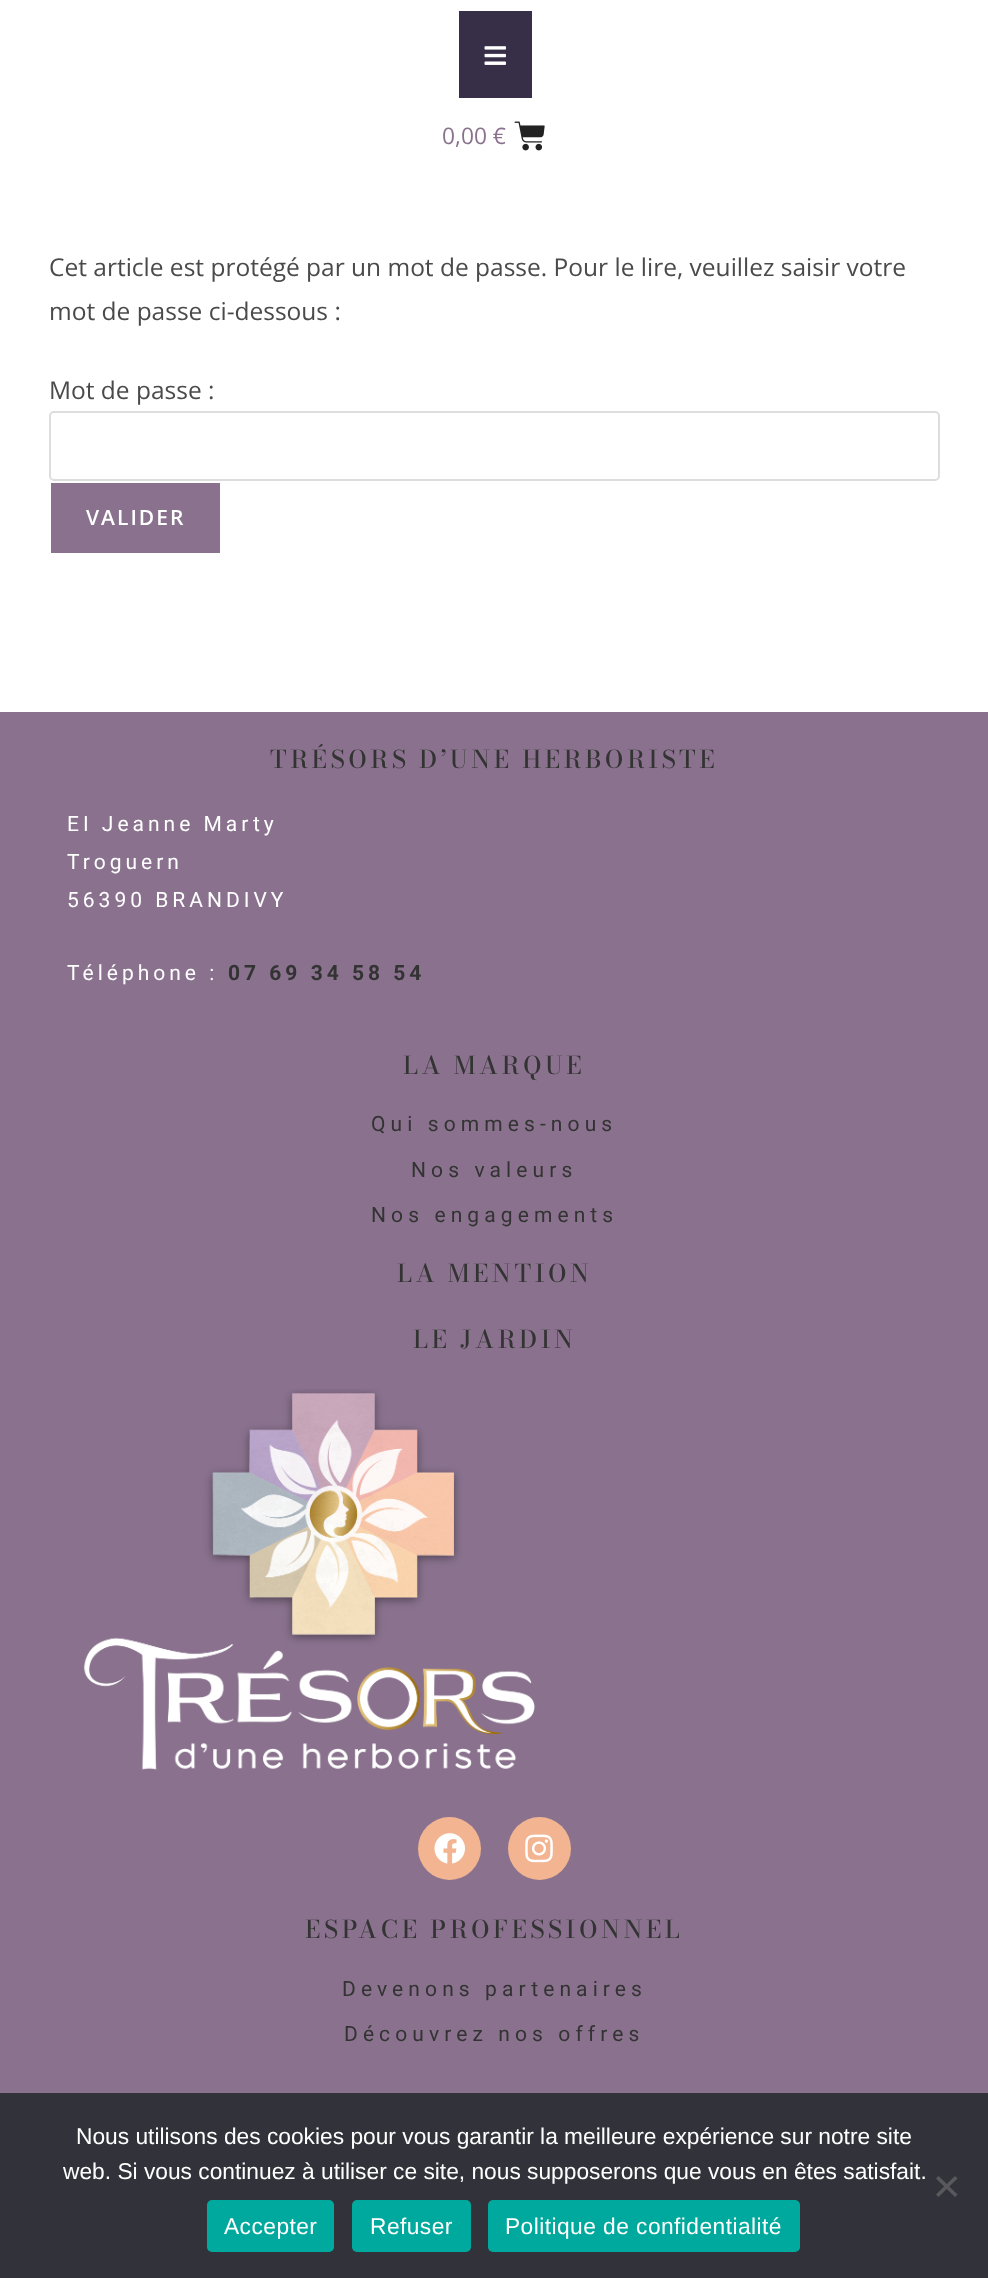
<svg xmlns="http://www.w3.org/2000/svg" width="988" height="2278">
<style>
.a{font:22.75px Open Sans;fill:#8a728e}
.b{font:24.5px Open Sans;fill:#4a4a4a}
.c{font:600 21px Open Sans;letter-spacing:2px;fill:#fff}
.d{font:500 24.5px Bodoni Moda;letter-spacing:3.5px;fill:#333}
.e{font:21px Roboto;letter-spacing:4px;fill:#fff}
.f{font:bold 21px Roboto;letter-spacing:4px;fill:#333}
.g{font:21px Roboto;letter-spacing:5.1px;fill:#333}
.h{font:22.75px Liberation Sans;fill:#fff}
.i{font:22.75px Liberation Sans;letter-spacing:0.45px;fill:#fff}
</style>
<rect width="100%" height="100%" fill="#fff"/>
<path fill="#372e48" d="M459 11h73v87H459z"/>
<image href="1.png" x="484" y="46" width="22" height="19"/>
<image href="2.png" x="514" y="121" width="31" height="30"/>
<rect fill="none" stroke="#ddd" stroke-width="2" x="50" y="412" width="889" height="68" rx="4"/>
<path fill="#8a728e" d="M51 483h169v70H51z"/>
<path fill="#8a728e" d="M0 712h988v1381H0z"/>
<image href="3.png" x="83" y="1389" width="452" height="381"/>
<circle fill="#f2b491" cx="449.5" cy="1848.5" r="31.5"/>
<image href="4.png" x="434" y="1833" width="31" height="31"/>
<circle fill="#f2b491" cx="539.5" cy="1848.5" r="31.5"/>
<image href="5.png" x="525" y="1834" width="28" height="29"/>
<path fill="#32323a" d="M0 2093h988v185H0z"/>
<path fill="#59595d" d="M955 2176l2.5 2.5l-19 18.5l-2.5-2.5z"/>
<path fill="#59595d" d="M936 2178.5l2.5-2.5l19 18.5l-2.5 2.5z"/>
<rect fill="#00a99d" x="207" y="2200" width="127" height="52" rx="5"/>
<rect fill="#00a99d" x="352" y="2200" width="119" height="52" rx="5"/>
<rect fill="#00a99d" x="488" y="2200" width="312" height="52" rx="5"/>
<text class="a" x="442" y="144">0,00 €</text>
<text class="b" x="49" y="276">Cet article est protégé par un mot de passe. Pour le lire, veuillez saisir votre</text>
<text class="b" x="49" y="320">mot de passe ci-dessous :</text>
<text class="b" x="49" y="399">Mot de passe :</text>
<text class="c" x="86" y="525">VALIDER</text>
<text class="d" x="270" y="768">TRÉSORS D’UNE HERBORISTE</text>
<text class="e" x="67" y="831">EI Jeanne Marty</text>
<text class="e" x="67" y="869">Troguern</text>
<text class="e" x="67" y="907">56390 BRANDIVY</text>
<text class="e" x="67" y="980">Téléphone :</text>
<text class="f" x="228" y="980">07 69 34 58 54</text>
<text class="d" x="403" y="1074">LA MARQUE</text>
<text class="g" x="371" y="1131">Qui sommes-nous</text>
<text class="g" x="411" y="1177">Nos valeurs</text>
<text class="g" x="371" y="1222">Nos engagements</text>
<text class="d" x="397" y="1282">LA MENTION</text>
<text class="d" x="413" y="1348">LE JARDIN</text>
<text class="d" x="305" y="1938">ESPACE PROFESSIONNEL</text>
<text class="g" x="342" y="1996">Devenons partenaires</text>
<text class="g" x="344" y="2041">Découvrez nos offres</text>
<text class="h" x="76" y="2144">Nous utilisons des cookies pour vous garantir la meilleure expérience sur notre site</text>
<text class="h" x="63" y="2179">web. Si vous continuez à utiliser ce site, nous supposerons que vous en êtes satisfait.</text>
<text class="i" x="224" y="2234">Accepter</text>
<text class="i" x="370" y="2234">Refuser</text>
<text class="i" x="505" y="2234">Politique de confidentialité</text>
</svg>
